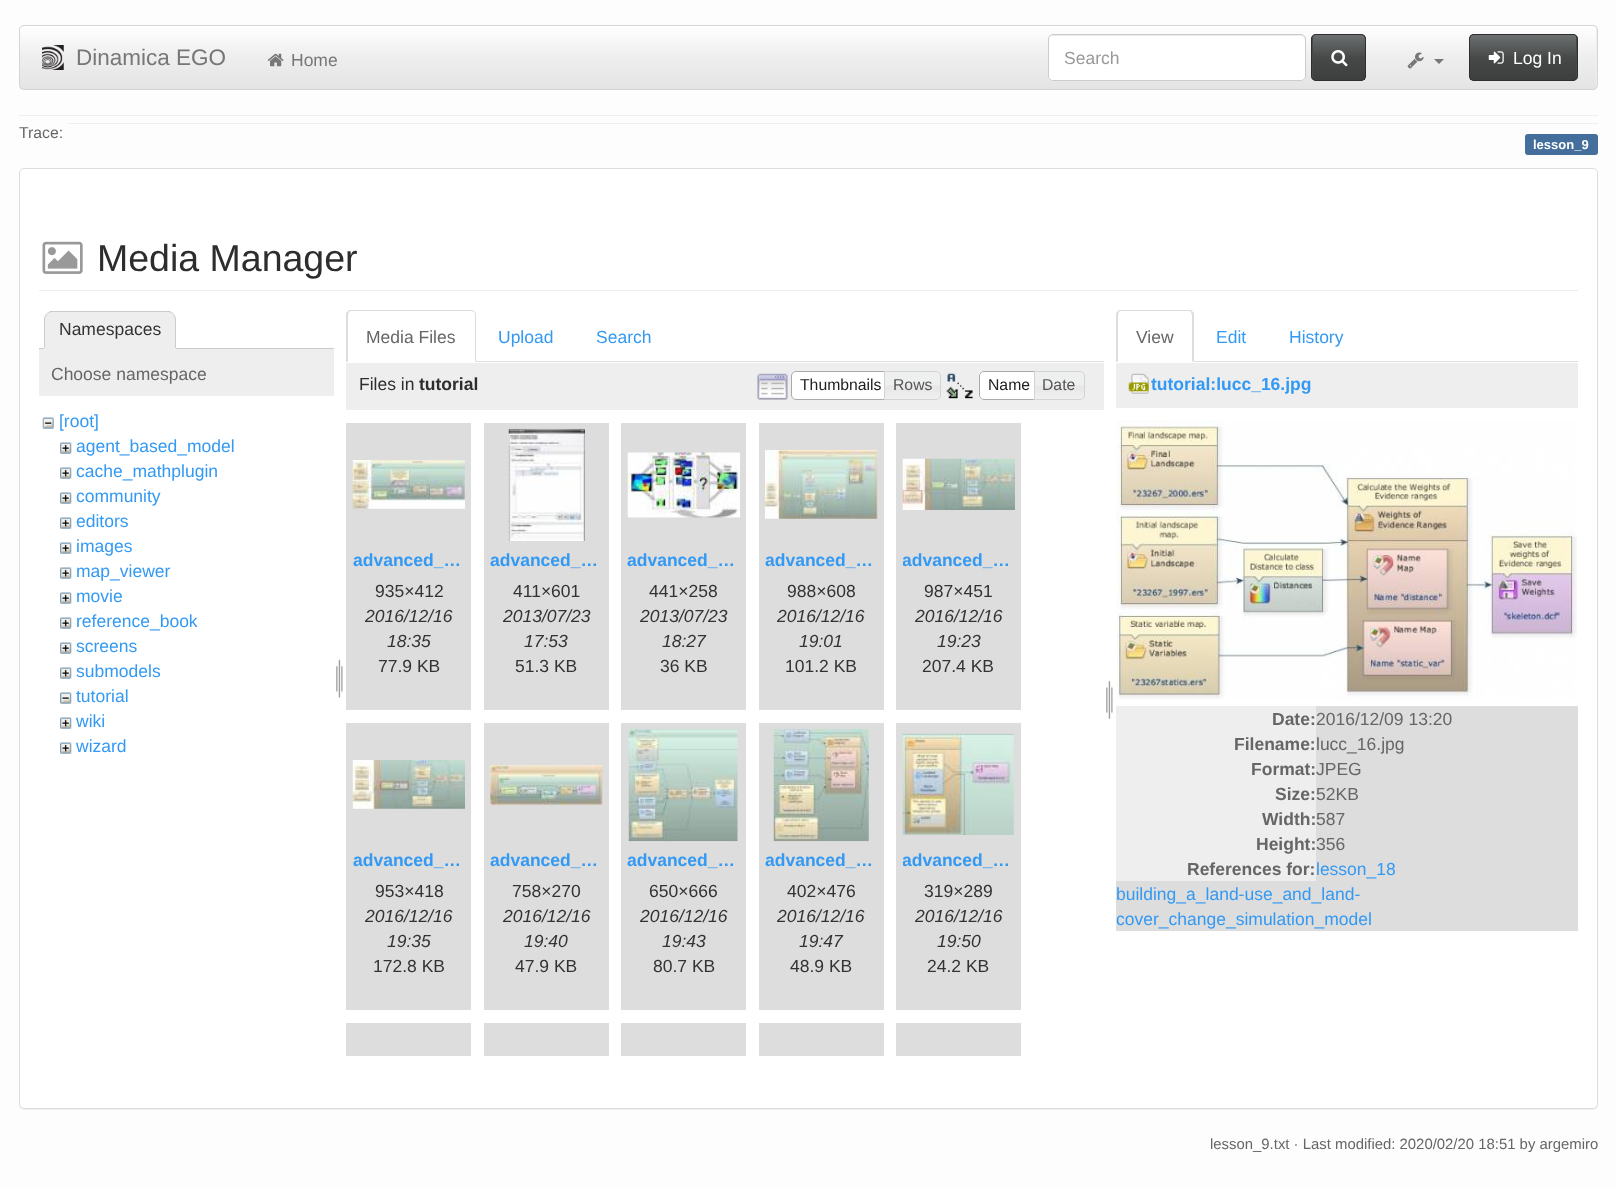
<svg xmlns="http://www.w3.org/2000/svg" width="1616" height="1187">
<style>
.a{font:22.5px Liberation Sans;fill:#777}
.b{font:17.5px Liberation Sans;fill:#777}
.c{font:17.5px Liberation Sans;fill:#999}
.d{font:17.5px Liberation Sans;fill:#fff}
.e{font:15.75px Liberation Sans;fill:#666}
.f{font:bold 13px Liberation Sans;fill:#fff}
.g{font:37.5px Liberation Sans;fill:#2d2d2d}
.h{font:17.5px Liberation Sans;fill:#333}
.i{font:17.5px Liberation Sans;fill:#666}
.j{font:17.5px Liberation Sans;fill:#3399f3}
.k{font:17.5px Liberation Sans;fill:#2d2d2d}
.l{font:bold 17.5px Liberation Sans;fill:#2d2d2d}
.m{font:15.75px Liberation Sans;fill:#212121}
.n{font:15.75px Liberation Sans;fill:#555}
.o{font:bold 17.5px Liberation Sans;fill:#3399f3}
.p{font:italic 17.5px Liberation Sans;fill:#333}
.q{font:bold 17.5px Liberation Sans;fill:#666}
.r{font:14.9px Liberation Sans;fill:#666}
</style>
<defs>
<linearGradient id="g1" gradientUnits="userSpaceOnUse" x1="808" y1="26" x2="808" y2="89"><stop offset="0" stop-color="#fff"/><stop offset="0.5" stop-color="#eee"/><stop offset="1" stop-color="#e4e4e4"/></linearGradient>
<linearGradient id="g2" gradientUnits="userSpaceOnUse" x1="1339" y1="35" x2="1339" y2="80"><stop offset="0" stop-color="#6d7070"/><stop offset="0.5" stop-color="#474949"/><stop offset="1" stop-color="#3d3f3f"/></linearGradient>
<linearGradient id="g3" gradientUnits="userSpaceOnUse" x1="1523" y1="35" x2="1523" y2="80"><stop offset="0" stop-color="#6d7070"/><stop offset="0.5" stop-color="#474949"/><stop offset="1" stop-color="#3d3f3f"/></linearGradient>
<clipPath id="clip1"><path d="M903 541h112v38H903z"/></clipPath>
<clipPath id="clip2"><path d="M903 841h112v38H903z"/></clipPath>
</defs>
<rect width="100%" height="100%" fill="#fdfdfd"/>
<rect fill="#eee" x="19" y="25" width="1579" height="65" rx="5"/>
<path fill="url(#g1)" d="M20 26h1576v63H20z"/>
<rect fill="none" stroke="#d5d5d5" x="19.5" y="25.5" width="1578" height="64" rx="4.5"/>
<image href="1.png" x="42" y="45" width="22" height="25"/>
<image href="2.png" x="267" y="53" width="17" height="14"/>
<rect fill="#fff" x="1048" y="34" width="258" height="47" rx="5"/>
<path fill="#ececec" d="M1052 36h250l2 2l1 2v-1c0-2-2-4-4-4h-248c-2 0-4 2-4 4v1c0-2 1-4 3-4z"/>
<rect fill="none" stroke="#ccc" x="1048.5" y="34.5" width="257" height="46" rx="4.5"/>
<rect fill="#474949" x="1311" y="34" width="55" height="47" rx="5"/>
<path fill="url(#g2)" d="M1313 35h52v45H1313z"/>
<rect fill="none" stroke="#2e2f2f" x="1311.5" y="34.5" width="54" height="46" rx="4.5"/>
<image href="3.png" x="1331" y="50" width="17" height="17"/>
<image href="4.png" x="1407" y="52" width="17" height="17"/>
<path fill="#777" d="M1434 59h10l-5 5z"/>
<rect fill="#474949" x="1469" y="34" width="109" height="47" rx="5"/>
<path fill="url(#g3)" d="M1470 35h106v45H1470z"/>
<rect fill="none" stroke="#2e2f2f" x="1469.5" y="34.5" width="108" height="46" rx="4.5"/>
<image href="5.png" x="1488" y="51" width="16" height="13"/>
<path fill="#eee" d="M19 115h1579v1H19z"/>
<path fill="#eee" d="M69 123h1529v1H69z"/>
<rect fill="#446e9b" x="1525" y="134" width="73" height="21" rx="3"/>
<rect fill="#0000000d" filter="blur(0.5px)" x="19" y="169" width="1579" height="941" rx="5"/>
<rect fill="#fff" stroke="#ddd" x="19.5" y="168.5" width="1578" height="940" rx="4.5"/>
<path fill="#eee" d="M39 290h1539v1H39z"/>
<image href="6.png" x="42" y="241" width="41" height="33"/>
<path fill="#ccc" d="M39 348h295v1H39z"/>
<path fill="#eee" d="M53 311h114c5 0 9 4 9 9v29h-132v-29c0-5 4-9 9-9z"/>
<path fill="#ccc" d="M52 312c-2 0-4 1-5 2h-1l4-3h120l4 3h-1c-1-1-3-2-5-2z"/>
<path fill="#ccc" d="M173.5 314c1.5 1.5 2.5 3.5 2.5 6v28.5l-1-1v-27.5c0-2-1-4-2-5.5z"/>
<path fill="#ccc" d="M44 348.5v-28.5c0-2.5 1-4.5 2.5-6l.5 .5c-1 1.5-2 3.5-2 5.5v27.5z"/>
<path fill="#eee" d="M39 349h295v47H39z"/>
<image href="7.png" x="42" y="417" width="12" height="12"/>
<image href="8.png" x="60" y="442" width="12" height="12"/>
<image href="8.png" x="60" y="467" width="12" height="12"/>
<image href="8.png" x="60" y="492" width="12" height="12"/>
<image href="8.png" x="60" y="517" width="12" height="12"/>
<image href="8.png" x="60" y="542" width="12" height="12"/>
<image href="8.png" x="60" y="567" width="12" height="12"/>
<image href="8.png" x="60" y="592" width="12" height="12"/>
<image href="8.png" x="60" y="617" width="12" height="12"/>
<image href="8.png" x="60" y="642" width="12" height="12"/>
<image href="8.png" x="60" y="667" width="12" height="12"/>
<image href="9.png" x="60" y="692" width="12" height="12"/>
<image href="8.png" x="60" y="717" width="12" height="12"/>
<image href="8.png" x="60" y="742" width="12" height="12"/>
<image href="10.png" x="336" y="659" width="7" height="39"/>
<path fill="#ddd" d="M476 361h628v1H476z"/>
<path fill="#ddd" d="M351 310c-1 0-3 0-3 1l1 1c0 0 1-1 2-1h120l3 1h1c-1-1-2-2-4-2z"/>
<path fill="#ddd" d="M475 312c1 0 1 2 1 3v47l-1-1v-46c0-1 0-2-1-3z"/>
<path fill="#ddd" d="M346 313l2-2l1 1l-1 3v46l-1 1h-1z"/>
<path fill="#eee" d="M346 363h758v47H346z"/>
<image href="11.png" x="757" y="373" width="31" height="27"/>
<path fill="#fff" stroke="#aaa" d="M796 371.5h93.5v28h-93.5c-2.5 0-4.5-2-4.5-4.5v-19c0-2.5 2-4.5 4.5-4.5z"/>
<image href="12.png" x="883" y="371" width="58" height="29"/>
<path fill="none" stroke="#d3d3d3" d="M884.5 371.5h51.5c2.5 0 4.5 2 4.5 4.5v19c0 2.5-2 4.5-4.5 4.5h-51.5z"/>
<image href="13.png" x="946" y="373" width="27" height="26"/>
<path fill="#fff" d="M984 371h56v29h-56c-3 0-5-2-5-5v-19c0-3 2-5 5-5z"/>
<image href="14.png" x="979" y="373" width="2" height="26"/>
<path fill="none" stroke="#aaa" d="M984 371.5h55.5v28h-55.5c-2.5 0-4.5-2-4.5-4.5v-19c0-2.5 2-4.5 4.5-4.5z"/>
<image href="15.png" x="1033" y="371" width="52" height="29"/>
<path fill="none" stroke="#d3d3d3" d="M1034.5 371.5h45.5c2.5 0 4.5 2 4.5 4.5v19c0 2.5-2 4.5-4.5 4.5h-45.5z"/>
<path fill="#ddd" d="M346 423h125v287H346z"/>
<image href="16.png" x="352" y="460" width="113" height="49"/>
<path fill="#ddd" d="M484 423h125v287H484z"/>
<image href="17.png" x="508" y="428" width="77" height="113"/>
<path fill="#ddd" d="M621 423h125v287H621z"/>
<image href="18.png" x="627" y="452" width="113" height="66"/>
<path fill="#ddd" d="M759 423h125v287H759z"/>
<image href="19.png" x="765" y="450" width="113" height="69"/>
<path fill="#ddd" d="M896 423h125v287H896z"/>
<image href="20.png" x="902" y="458" width="113" height="52"/>
<path fill="#ddd" d="M346 723h125v287H346z"/>
<image href="21.png" x="352" y="760" width="113" height="49"/>
<path fill="#ddd" d="M484 723h125v287H484z"/>
<image href="22.png" x="490" y="765" width="113" height="40"/>
<path fill="#ddd" d="M621 723h125v287H621z"/>
<image href="23.png" x="628" y="729" width="110" height="113"/>
<path fill="#ddd" d="M759 723h125v287H759z"/>
<image href="24.png" x="773" y="729" width="96" height="113"/>
<path fill="#ddd" d="M896 723h125v287H896z"/>
<image href="25.png" x="902" y="733" width="112" height="102"/>
<path fill="#ddd" d="M346 1023h125v33H346z"/>
<path fill="#ddd" d="M484 1023h125v33H484z"/>
<path fill="#ddd" d="M621 1023h125v33H621z"/>
<path fill="#ddd" d="M759 1023h125v33H759z"/>
<path fill="#ddd" d="M896 1023h125v33H896z"/>
<image href="26.png" x="1106" y="680" width="7" height="39"/>
<path fill="#ddd" d="M1194 361h384v1H1194z"/>
<path fill="#ddd" d="M1121 310c-1 0-3 0-3 1l1 1c0 0 1-1 2-1h68l2 1l1-1c0-1-2-1-3-1z"/>
<path fill="#ddd" d="M1194 362l-2-1v-46l-1-3l1-1l2 2z"/>
<path fill="#ddd" d="M1116 313l2-2l1 1l-1 3v46l-1 1h-1z"/>
<path fill="#eee" d="M1116 363h462v45H1116z"/>
<image href="27.png" x="1128" y="373" width="21" height="21"/>
<image href="28.png" x="1116" y="420" width="461" height="280"/>
<path fill="#eee" d="M1116 706h200v175H1116z"/>
<path fill="#ddd" d="M1316 706h262v175H1316z"/>
<path fill="#ddd" d="M1116 881h462v50H1116z"/>
<text class="a" x="76" y="65">Dinamica EGO</text>
<text class="b" x="291" y="66">Home</text>
<text class="c" x="1064" y="64">Search</text>
<text class="d" x="1513" y="64">Log In</text>
<text class="e" x="19" y="138">Trace:</text>
<text class="f" x="1533" y="149">lesson_9</text>
<text class="g" x="97" y="271">Media Manager</text>
<text class="h" x="59" y="335">Namespaces</text>
<text class="i" x="51" y="380">Choose namespace</text>
<text class="j" x="59" y="427">[root]</text>
<text class="j" x="76" y="452">agent_based_model</text>
<text class="j" x="76" y="477">cache_mathplugin</text>
<text class="j" x="76" y="502">community</text>
<text class="j" x="76" y="527">editors</text>
<text class="j" x="76" y="552">images</text>
<text class="j" x="76" y="577">map_viewer</text>
<text class="j" x="76" y="602">movie</text>
<text class="j" x="76" y="627">reference_book</text>
<text class="j" x="76" y="652">screens</text>
<text class="j" x="76" y="677">submodels</text>
<text class="j" x="76" y="702">tutorial</text>
<text class="j" x="76" y="727">wiki</text>
<text class="j" x="76" y="752">wizard</text>
<text class="i" x="366" y="343">Media Files</text>
<text class="j" x="498" y="343">Upload</text>
<text class="j" x="596" y="343">Search</text>
<text class="k" x="359" y="390">Files in</text>
<text class="l" x="419" y="390">tutorial</text>
<text class="m" x="800" y="390">Thumbnails</text>
<text class="n" x="893" y="390">Rows</text>
<text class="m" x="988" y="390">Name</text>
<text class="n" x="1042" y="390">Date</text>
<text class="o" x="353" y="566">advanced_…</text>
<text class="h" x="375" y="597">935×412</text>
<text class="p" x="365" y="622">2016/12/16</text>
<text class="p" x="387" y="647">18:35</text>
<text class="h" x="378" y="672">77.9 KB</text>
<text class="o" x="490" y="566">advanced_…</text>
<text class="h" x="513" y="597">411×601</text>
<text class="p" x="503" y="622">2013/07/23</text>
<text class="p" x="524" y="647">17:53</text>
<text class="h" x="515" y="672">51.3 KB</text>
<text class="o" x="627" y="566">advanced_…</text>
<text class="h" x="649" y="597">441×258</text>
<text class="p" x="640" y="622">2013/07/23</text>
<text class="p" x="662" y="647">18:27</text>
<text class="h" x="660" y="672">36 KB</text>
<text class="o" x="765" y="566">advanced_…</text>
<text class="h" x="787" y="597">988×608</text>
<text class="p" x="777" y="622">2016/12/16</text>
<text class="p" x="799" y="647">19:01</text>
<text class="h" x="785" y="672">101.2 KB</text>
<g clip-path="url(#clip1)">
<text class="o" x="902" y="566">advanced_…</text>
</g>
<text class="h" x="924" y="597">987×451</text>
<text class="p" x="915" y="622">2016/12/16</text>
<text class="p" x="937" y="647">19:23</text>
<text class="h" x="922" y="672">207.4 KB</text>
<text class="o" x="353" y="866">advanced_…</text>
<text class="h" x="375" y="897">953×418</text>
<text class="p" x="365" y="922">2016/12/16</text>
<text class="p" x="387" y="947">19:35</text>
<text class="h" x="373" y="972">172.8 KB</text>
<text class="o" x="490" y="866">advanced_…</text>
<text class="h" x="512" y="897">758×270</text>
<text class="p" x="503" y="922">2016/12/16</text>
<text class="p" x="524" y="947">19:40</text>
<text class="h" x="515" y="972">47.9 KB</text>
<text class="o" x="627" y="866">advanced_…</text>
<text class="h" x="649" y="897">650×666</text>
<text class="p" x="640" y="922">2016/12/16</text>
<text class="p" x="662" y="947">19:43</text>
<text class="h" x="653" y="972">80.7 KB</text>
<text class="o" x="765" y="866">advanced_…</text>
<text class="h" x="787" y="897">402×476</text>
<text class="p" x="777" y="922">2016/12/16</text>
<text class="p" x="799" y="947">19:47</text>
<text class="h" x="790" y="972">48.9 KB</text>
<g clip-path="url(#clip2)">
<text class="o" x="902" y="866">advanced_…</text>
</g>
<text class="h" x="924" y="897">319×289</text>
<text class="p" x="915" y="922">2016/12/16</text>
<text class="p" x="937" y="947">19:50</text>
<text class="h" x="927" y="972">24.2 KB</text>
<text class="i" x="1136" y="343">View</text>
<text class="j" x="1216" y="343">Edit</text>
<text class="j" x="1289" y="343">History</text>
<text class="o" x="1151" y="390">tutorial:lucc_16.jpg</text>
<text class="q" x="1272" y="725">Date:</text>
<text class="i" x="1316" y="725">2016/12/09 13:20</text>
<text class="q" x="1234" y="750">Filename:</text>
<text class="i" x="1316" y="750">lucc_16.jpg</text>
<text class="q" x="1251" y="775">Format:</text>
<text class="i" x="1316" y="775">JPEG</text>
<text class="q" x="1275" y="800">Size:</text>
<text class="i" x="1316" y="800">52KB</text>
<text class="q" x="1262" y="825">Width:</text>
<text class="i" x="1316" y="825">587</text>
<text class="q" x="1256" y="850">Height:</text>
<text class="i" x="1316" y="850">356</text>
<text class="q" x="1187" y="875">References for:</text>
<text class="j" x="1316" y="875">lesson_18</text>
<text class="j" x="1116" y="900">building_a_land-use_and_land-</text>
<text class="j" x="1116" y="925">cover_change_simulation_model</text>
<text class="r" x="1210" y="1149">lesson_9.txt · Last modified: 2020/02/20 18:51 by argemiro</text>
</svg>
